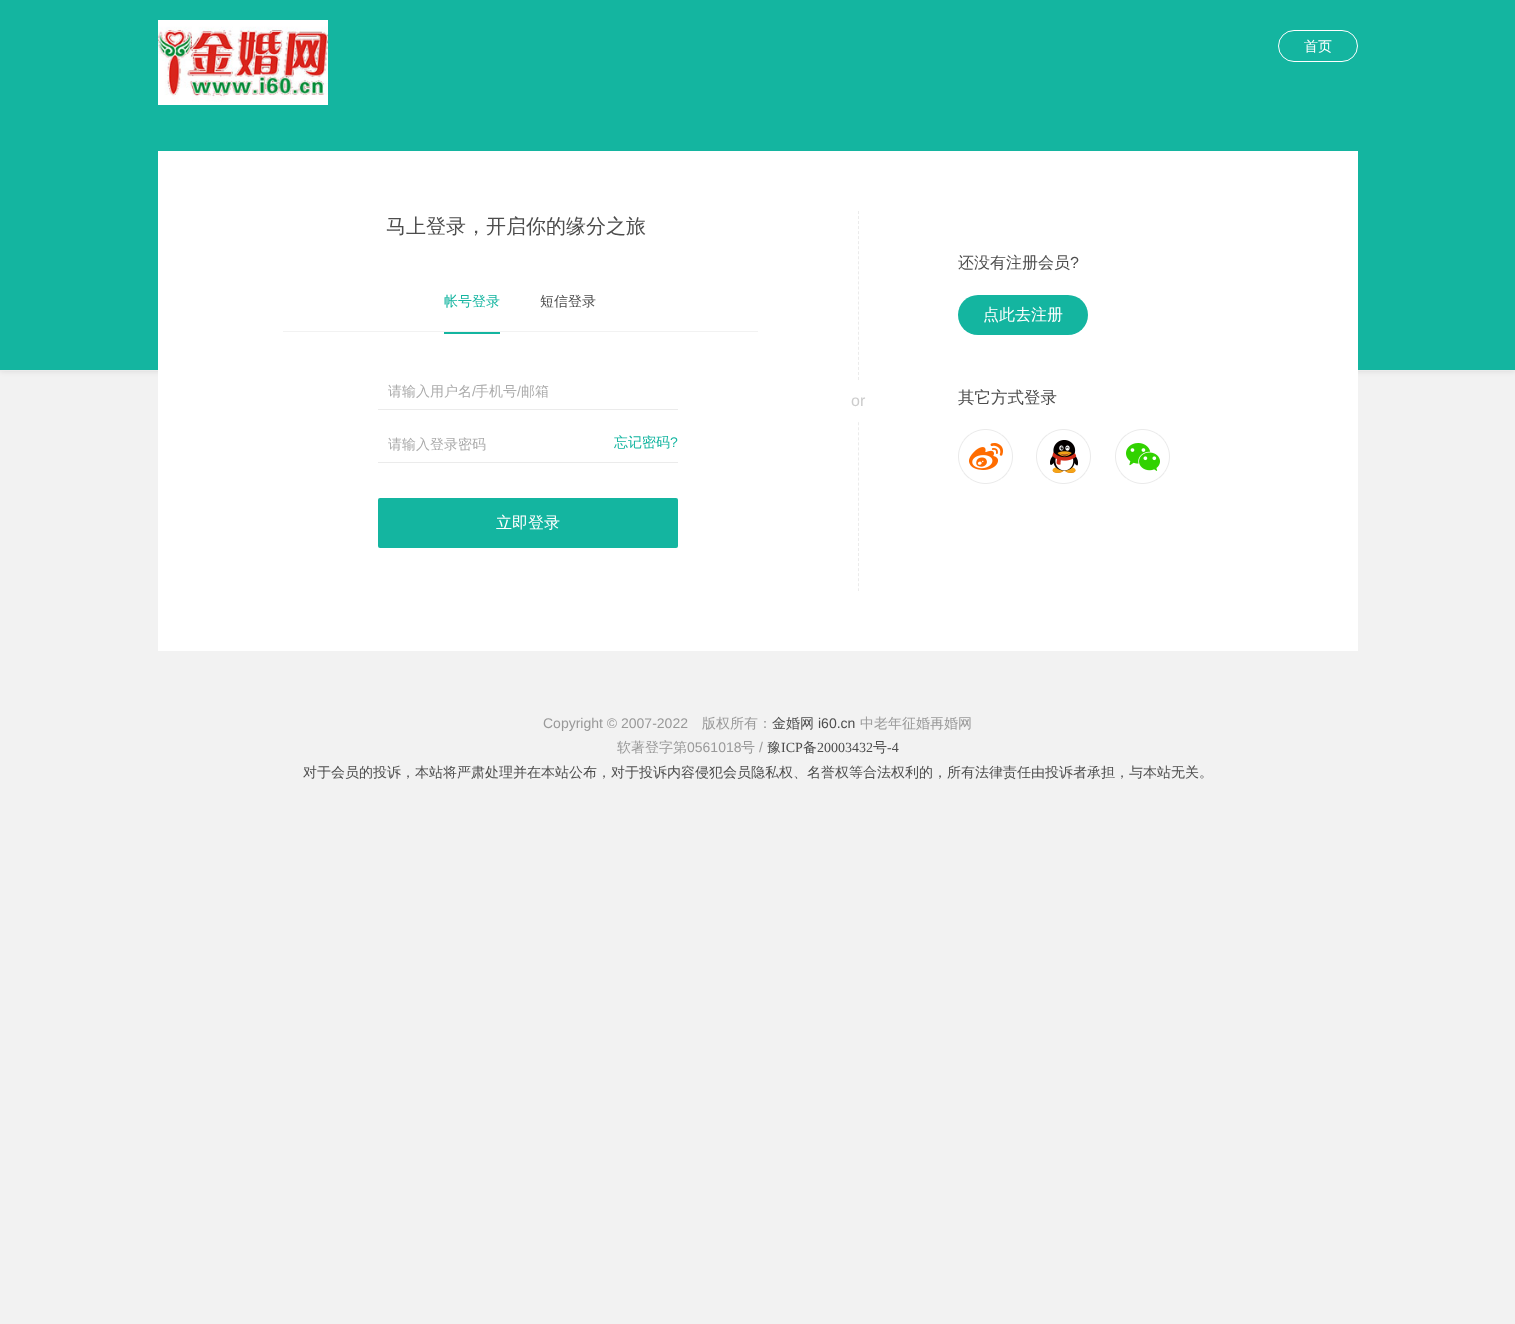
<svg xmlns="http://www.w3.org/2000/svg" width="1515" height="1324">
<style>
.a{font:500 14px WenQuanYi Zen Hei;fill:#fff}
.b{font:500 20px WenQuanYi Zen Hei;fill:#4d4d4d}
.c{font:500 14px WenQuanYi Zen Hei;fill:#14b5a0}
.d{font:500 14px WenQuanYi Zen Hei;fill:#4d4d4d}
.e{font:500 14px WenQuanYi Zen Hei;fill:#ababab}
.f{font:14px Liberation Sans;fill:#ababab}
.g{font:14px Liberation Sans;fill:#14b5a0}
.h{font:500 16px WenQuanYi Zen Hei;fill:#fff}
.i{font:500 16px WenQuanYi Zen Hei;fill:#4d4d4d}
.j{font:16px Liberation Sans;fill:#4d4d4d}
.k{font:16px Liberation Sans;fill:#ccc}
.l{font:500 16.5px WenQuanYi Zen Hei;fill:#4d4d4d}
.m{font:14px Liberation Sans;fill:#999}
.n{font:500 14px WenQuanYi Zen Hei;fill:#999}
.o{font:14px Liberation Sans;fill:#4d4d4d}
.p{font:14px Liberation Serif;fill:#4d4d4d}
</style>
<rect width="100%" height="100%" fill="#f2f2f2"/>
<path fill="#00000014" filter="blur(2.5px)" d="M0 1h1515v371H0z"/>
<path fill="#14b5a0" d="M0 0h1515v370H0z"/>
<path fill="#ebebeb" d="M0 370h1515v1H0z"/>
<image href="1.png" x="158" y="20" width="170" height="85"/>
<rect fill="none" stroke="#fff" x="1278.5" y="30.5" width="79" height="31" rx="15.5"/>
<path fill="#fff" d="M158 151h1200v500H158z"/>
<path fill="#f2f2f2" d="M283 331h475v1H283z"/>
<path fill="#14b5a0" d="M444 332h56v2H444z"/>
<path fill="#ebebeb" d="M378 409h300v1H378z"/>
<path fill="#ebebeb" d="M378 462h300v1H378z"/>
<rect fill="#14b5a0" x="378" y="498" width="300" height="50" rx="2"/>
<rect fill="#14b5a0" x="958" y="295" width="130" height="40" rx="20"/>
<path fill="none" stroke="#ebebeb" stroke-dasharray="3 2.03" d="M858.5 211v380"/>
<path fill="#fff" d="M858 382h1v39H858z"/>
<image href="2.png" x="958" y="429" width="55" height="55"/>
<image href="3.png" x="1036" y="429" width="55" height="55"/>
<image href="4.png" x="1115" y="429" width="55" height="55"/>
<text class="a" x="1304" y="51">首页</text>
<text class="b" x="386" y="233">马上登录，开启你的缘分之旅</text>
<text class="c" x="444" y="306">帐号登录</text>
<text class="d" x="540" y="306">短信登录</text>
<text class="e" x="388" y="396">请输入用户名</text>
<text class="f" x="472" y="396">/</text>
<text class="e" x="475" y="396">手机号</text>
<text class="f" x="517" y="396">/</text>
<text class="e" x="521" y="396">邮箱</text>
<text class="e" x="388" y="449">请输入登录密码</text>
<text class="c" x="614" y="447">忘记密码</text>
<text class="g" x="670" y="447">?</text>
<text class="h" x="496" y="528">立即登录</text>
<text class="i" x="958" y="268">还没有注册会员</text>
<text class="j" x="1070" y="268">?</text>
<text class="h" x="983" y="320">点此去注册</text>
<text class="k" x="851" y="406">or</text>
<text class="l" x="958" y="403">其它方式登录</text>
<text class="m" x="543" y="728">Copyright © 2007-2022</text>
<text class="n" x="702" y="728">版权所有：</text>
<text class="d" x="772" y="728">金婚网</text>
<text class="o" x="818" y="728">i60.cn</text>
<text class="n" x="860" y="728">中老年征婚再婚网</text>
<text class="n" x="617" y="752">软著登字第</text>
<text class="m" x="687" y="752">0561018</text>
<text class="n" x="741" y="752">号</text>
<text class="m" x="759" y="752">/</text>
<text class="d" x="767" y="752">豫</text>
<text class="p" x="781" y="752">ICP</text>
<text class="d" x="803" y="752">备</text>
<text class="p" x="817" y="752">20003432</text>
<text class="d" x="873" y="752">号</text>
<text class="p" x="887" y="752">-4</text>
<text class="d" x="303" y="777">对于会员的投诉，本站将严肃处理并在本站公布，对于投诉内容侵犯会员隐私权、名誉权等合法权利的，所有法律责任由投诉者承担，与本站无关。</text>
</svg>
